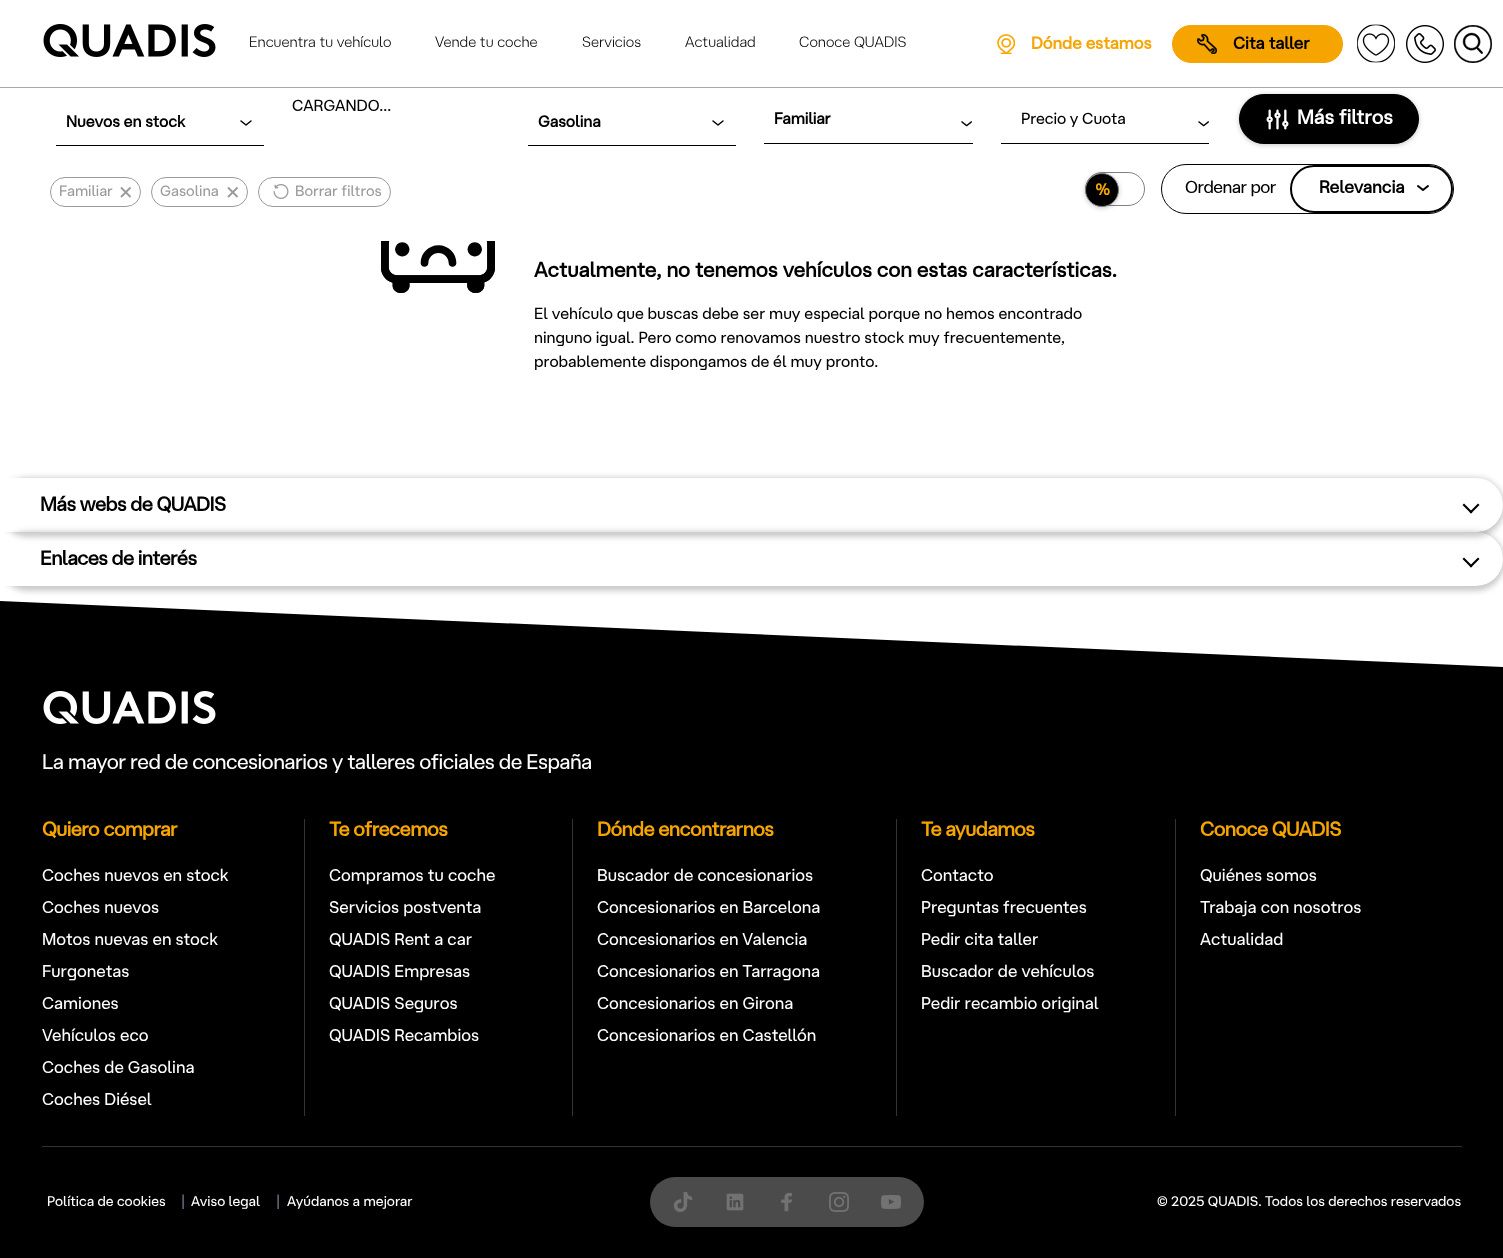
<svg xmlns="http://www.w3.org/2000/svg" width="1503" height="1258">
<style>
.a{font:300 15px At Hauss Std;fill:#000}
.b{font:bold 17px At Hauss Std;fill:#f5a400}
.c{font:bold 17px At Hauss Std;fill:#000}
.d{font:16px At Hauss Std;fill:#000}
.e{font:bold 16px At Hauss Std;fill:#000}
.f{font:bold 16px At Hauss Std;letter-spacing:-0.1px;fill:#000}
.g{font:16px At Hauss Std;letter-spacing:-0.1px;fill:#000}
.h{font:bold 20px At Hauss Std;fill:#fff}
.i{font:15px At Hauss Std;fill:#9b9b9b}
.j{font:bold 16px At Hauss Std;fill:#f5a400}
.k{font:17.5px At Hauss Std;letter-spacing:-0.5px;fill:#000}
.l{font:bold 17.5px At Hauss Std;fill:#000}
.m{font:bold 20.8px At Hauss Std;fill:#000}
.n{font:bold 20px At Hauss Std;letter-spacing:-0.5px;fill:#000}
.o{font:21px At Hauss Std;letter-spacing:-0.55px;fill:#fff}
.p{font:bold 20px At Hauss Std;letter-spacing:-0.5px;fill:#f5a400}
.q{font:17px At Hauss Std;fill:#fff}
.r{font:14px At Hauss Std;fill:#fff}
.s{font:16px At Hauss Std;fill:#6b7a8e}
</style>
<defs>
<clipPath id="clip1"><path d="M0 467h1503v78h-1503zm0 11h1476c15 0 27 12 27 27c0 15-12 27-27 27h-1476z" clip-rule="evenodd"/></clipPath>
<clipPath id="clip2"><path d="M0 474h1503v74h-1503zm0 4h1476c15 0 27 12 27 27c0 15-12 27-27 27h-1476z" clip-rule="evenodd"/></clipPath>
<clipPath id="clip3"><path d="M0 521h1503v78h-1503zm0 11h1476c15 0 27 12 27 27c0 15-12 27-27 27h-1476z" clip-rule="evenodd"/></clipPath>
<clipPath id="clip4"><path d="M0 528h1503v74h-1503zm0 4h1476c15 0 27 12 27 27c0 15-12 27-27 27h-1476z" clip-rule="evenodd"/></clipPath>
<clipPath id="clip5"><path d="M0 601h1503v90H0z"/></clipPath>
</defs>
<rect width="100%" height="100%" fill="#fff"/>
<rect fill="#00000038" filter="blur(2.5px)" x="1239" y="95" width="180" height="50" rx="25"/>
<path fill="#a9a9a9" d="M0 87h1503v1H0z"/>
<image href="1.png" x="43" y="24" width="173" height="33"/>
<image href="2.png" x="997" y="34" width="18" height="20"/>
<rect fill="#f5a400" stroke="#f5a400" x="1172.5" y="25.5" width="170" height="37" rx="18.5"/>
<image href="3.png" x="1197" y="34" width="20" height="20"/>
<image href="4.png" x="1357" y="24" width="38" height="39"/>
<image href="5.png" x="1406" y="25" width="38" height="38"/>
<image href="6.png" x="1454" y="25" width="38" height="38"/>
<path fill="#000" d="M56 145h208v1H56z"/>
<path fill="none" stroke="#000" stroke-width="1.5" stroke-linecap="round" stroke-linejoin="round" d="M251 121l-5 4l-5-4"/>
<path fill="#000" d="M528 145h208v1H528z"/>
<path fill="none" stroke="#000" stroke-width="1.5" stroke-linecap="round" stroke-linejoin="round" d="M723 121l-5 4l-5-4"/>
<path fill="#000" d="M764 143h209v1H764z"/>
<image href="7.png" x="961" y="121" width="11" height="6"/>
<path fill="#000" d="M1001 143h208v1H1001z"/>
<image href="7.png" x="1198" y="121" width="11" height="6"/>
<rect fill="#000" stroke="#000" x="1239.5" y="94.5" width="179" height="49" rx="24.5"/>
<image href="8.png" x="1266" y="109" width="23" height="21"/>
<rect fill="none" stroke="#9b9b9b" x="50.5" y="177.5" width="90" height="29" rx="14.5"/>
<image href="9.png" x="120" y="186" width="12" height="12"/>
<rect fill="none" stroke="#9b9b9b" x="151.5" y="177.5" width="96" height="29" rx="14.5"/>
<image href="9.png" x="227" y="186" width="12" height="12"/>
<rect fill="none" stroke="#9b9b9b" x="258.5" y="177.5" width="132" height="29" rx="14.5"/>
<image href="10.png" x="273" y="184" width="16" height="15"/>
<rect fill="none" stroke="#808080" x="1085.5" y="172.5" width="59" height="33" rx="16.5"/>
<rect fill="#00000038" filter="blur(2.5px)" x="1085" y="174" width="34" height="34" rx="17"/>
<circle fill="#000" stroke="#808080" cx="1102" cy="190" r="16.5"/>
<rect fill="none" stroke="#000" x="1161.5" y="164.5" width="292" height="49" rx="24.5"/>
<rect fill="none" stroke="#000" stroke-width="2" x="1291" y="166" width="161" height="46" rx="23"/>
<path fill="none" stroke="#000" stroke-width="2" stroke-linecap="round" stroke-linejoin="round" d="M1428 186l-5 4l-5-4"/>
<image href="11.png" x="381" y="241" width="114" height="52"/>
<g clip-path="url(#clip1)">
<rect fill="#0000004d" filter="blur(3.5px)" y="479" width="1503" height="54" rx="27"/>
</g>
<g clip-path="url(#clip2)">
<rect fill="#ccc" filter="blur(3.5px)" x="2" y="486" width="1499" height="50" rx="25"/>
</g>
<path fill="#000" d="M1471 513.5l-8.5-8.5l1.5-1.5l8.5 8.5z"/>
<path fill="#000" d="M1471 513.5l-1.5-1.5l8.5-8.5l1.5 1.5z"/>
<g clip-path="url(#clip3)">
<rect fill="#0000004d" filter="blur(3.5px)" y="533" width="1503" height="54" rx="27"/>
</g>
<g clip-path="url(#clip4)">
<rect fill="#ccc" filter="blur(3.5px)" x="2" y="540" width="1499" height="50" rx="25"/>
</g>
<path fill="#000" d="M1471 567.5l-8.5-8.5l1.5-1.5l8.5 8.5z"/>
<path fill="#000" d="M1471 567.5l-1.5-1.5l8.5-8.5l1.5 1.5z"/>
<g clip-path="url(#clip5)">
<path fill="#000" d="M0 601l1503 66v90l-1503-66z"/>
</g>
<path fill="#000" d="M0 691h1503v567H0z"/>
<image href="12.png" x="43" y="691" width="173" height="33"/>
<path fill="#333" d="M42 1146h1420v1H42z"/>
<path fill="#333" d="M304 819h1v297H304z"/>
<path fill="#333" d="M572 819h1v297H572z"/>
<path fill="#333" d="M896 819h1v297H896z"/>
<path fill="#333" d="M1175 819h1v297H1175z"/>
<rect fill="#4b4b4b" x="650" y="1177" width="274" height="50" rx="25"/>
<image href="13.png" x="673" y="1192" width="20" height="20"/>
<image href="14.png" x="726" y="1193" width="18" height="18"/>
<image href="15.png" x="781" y="1192" width="12" height="20"/>
<image href="16.png" x="829" y="1192" width="20" height="20"/>
<image href="17.png" x="881" y="1195" width="20" height="14"/>
<text class="a" x="249" y="47">Encuentra tu vehículo</text>
<text class="a" x="435" y="47">Vende tu coche</text>
<text class="a" x="582" y="47">Servicios</text>
<text class="a" x="685" y="47">Actualidad</text>
<text class="a" x="799" y="47">Conoce QUADIS</text>
<text class="b" x="1031" y="49">Dónde estamos</text>
<text class="c" x="1233" y="49">Cita taller</text>
<text class="d" x="292" y="111">CARGANDO...</text>
<text class="e" x="66" y="127">Nuevos en stock</text>
<text class="e" x="538" y="127">Gasolina</text>
<text class="f" x="774" y="124">Familiar</text>
<text class="g" x="1021" y="124">Precio y Cuota</text>
<text class="h" x="1297" y="124">Más filtros</text>
<text class="i" x="59" y="196">Familiar</text>
<text class="i" x="160" y="196">Gasolina</text>
<text class="i" x="295" y="196">Borrar filtros</text>
<text class="j" x="1095" y="195">%</text>
<text class="k" x="1185" y="193">Ordenar por</text>
<text class="l" x="1319" y="193">Relevancia</text>
<text class="m" x="534" y="277">Actualmente, no tenemos vehículos con estas características.</text>
<text class="d" x="534" y="319">El vehículo que buscas debe ser muy especial porque no hemos encontrado</text>
<text class="d" x="534" y="343">ninguno igual. Pero como renovamos nuestro stock muy frecuentemente,</text>
<text class="d" x="534" y="367">probablemente dispongamos de él muy pronto.</text>
<text class="n" x="40" y="511">Más webs de QUADIS</text>
<text class="n" x="40" y="565">Enlaces de interés</text>
<text class="o" x="42" y="769">La mayor red de concesionarios y talleres oficiales de España</text>
<text class="p" x="42" y="836">Quiero comprar</text>
<text class="q" x="42" y="881">Coches nuevos en stock</text>
<text class="q" x="42" y="913">Coches nuevos</text>
<text class="q" x="42" y="945">Motos nuevas en stock</text>
<text class="q" x="42" y="977">Furgonetas</text>
<text class="q" x="42" y="1009">Camiones</text>
<text class="q" x="42" y="1041">Vehículos eco</text>
<text class="q" x="42" y="1073">Coches de Gasolina</text>
<text class="q" x="42" y="1105">Coches Diésel</text>
<text class="p" x="329" y="836">Te ofrecemos</text>
<text class="q" x="329" y="881">Compramos tu coche</text>
<text class="q" x="329" y="913">Servicios postventa</text>
<text class="q" x="329" y="945">QUADIS Rent a car</text>
<text class="q" x="329" y="977">QUADIS Empresas</text>
<text class="q" x="329" y="1009">QUADIS Seguros</text>
<text class="q" x="329" y="1041">QUADIS Recambios</text>
<text class="p" x="597" y="836">Dónde encontrarnos</text>
<text class="q" x="597" y="881">Buscador de concesionarios</text>
<text class="q" x="597" y="913">Concesionarios en Barcelona</text>
<text class="q" x="597" y="945">Concesionarios en Valencia</text>
<text class="q" x="597" y="977">Concesionarios en Tarragona</text>
<text class="q" x="597" y="1009">Concesionarios en Girona</text>
<text class="q" x="597" y="1041">Concesionarios en Castellón</text>
<text class="p" x="921" y="836">Te ayudamos</text>
<text class="q" x="921" y="881">Contacto</text>
<text class="q" x="921" y="913">Preguntas frecuentes</text>
<text class="q" x="921" y="945">Pedir cita taller</text>
<text class="q" x="921" y="977">Buscador de vehículos</text>
<text class="q" x="921" y="1009">Pedir recambio original</text>
<text class="p" x="1200" y="836">Conoce QUADIS</text>
<text class="q" x="1200" y="881">Quiénes somos</text>
<text class="q" x="1200" y="913">Trabaja con nosotros</text>
<text class="q" x="1200" y="945">Actualidad</text>
<text class="r" x="47" y="1206">Política de cookies</text>
<text class="s" x="181" y="1206">|</text>
<text class="r" x="191" y="1206">Aviso legal</text>
<text class="s" x="276" y="1206">|</text>
<text class="r" x="287" y="1206">Ayúdanos a mejorar</text>
<text class="r" x="1157" y="1206">© 2025 QUADIS. Todos los derechos reservados</text>
</svg>
